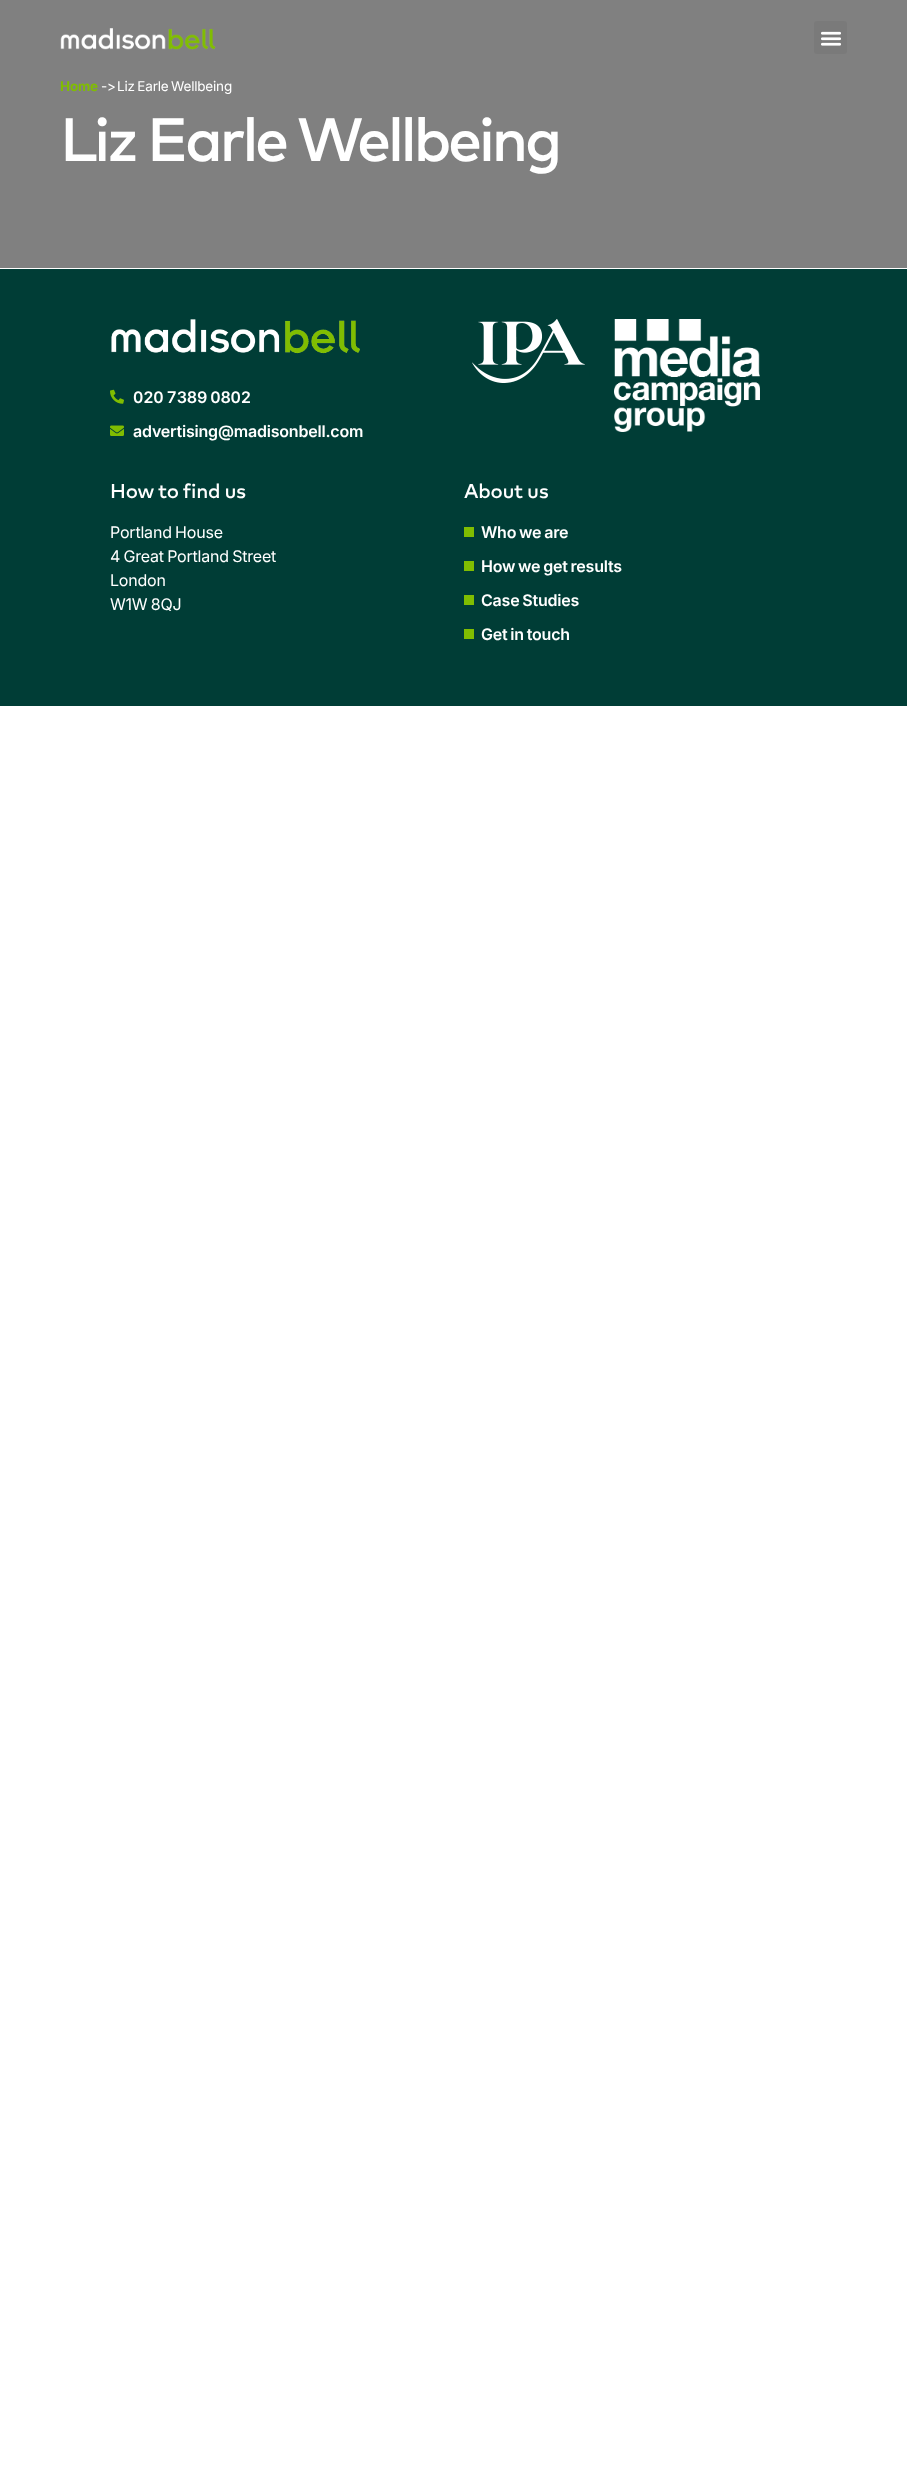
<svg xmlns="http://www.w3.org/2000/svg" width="907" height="2492">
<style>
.a{font:bold 13.5px Inter;letter-spacing:-0.2px;fill:#80bd01}
.b{font:13.5px Inter;letter-spacing:-0.2px;fill:#fff}
.c{font:500 61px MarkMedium;letter-spacing:-3.5px;fill:#fff}
.d{font:600 16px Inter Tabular;letter-spacing:-0.2px;fill:#fff}
.e{font:600 16px Inter;letter-spacing:-0.2px;fill:#fff}
.f{font:500 20px MarkMedium;letter-spacing:-0.25px;fill:#fff}
.g{font:16px Inter;letter-spacing:-0.2px;fill:#fff}
</style>
<rect width="100%" height="100%" fill="#fff"/>
<path fill="#808080" d="M0 0h907v268H0z"/>
<image href="1.png" x="60" y="28" width="156" height="22"/>
<rect fill="#7a7a7a" x="814" y="21" width="33" height="33" rx="3"/>
<image href="2.png" x="821" y="31" width="20" height="15"/>
<path fill="#003d36" d="M0 269h907v437H0z"/>
<image href="3.png" x="111" y="319" width="249" height="35"/>
<image href="4.png" x="110" y="389" width="14" height="15"/>
<image href="5.png" x="110" y="425" width="14" height="11"/>
<image href="6.png" x="472" y="319" width="113" height="64"/>
<image href="7.png" x="614" y="319" width="146" height="113"/>
<path fill="#80bd01" d="M464 527h10v10H464z"/>
<path fill="#80bd01" d="M464 561h10v10H464z"/>
<path fill="#80bd01" d="M464 595h10v10H464z"/>
<path fill="#80bd01" d="M464 629h10v10H464z"/>
<text class="a" x="60" y="91">Home</text>
<text class="b" x="101" y="91">-&gt;</text>
<text class="b" x="117" y="91" word-spacing="-1">Liz Earle Wellbeing</text>
<text class="c" x="60" y="161" word-spacing="-1">Liz Earle Wellbeing</text>
<text class="d" x="133" y="403" word-spacing="-1">020 7389 0802</text>
<text class="e" x="133" y="437">advertising@madisonbell.com</text>
<text class="f" x="110" y="498" word-spacing="-1">How to find us</text>
<text class="g" x="110" y="538" word-spacing="-1">Portland House</text>
<text class="g" x="110" y="562" word-spacing="-1">4 Great Portland Street</text>
<text class="g" x="110" y="586">London</text>
<text class="g" x="110" y="610" word-spacing="-1">W1W 8QJ</text>
<text class="f" x="464" y="498" word-spacing="-1">About us</text>
<text class="e" x="481" y="538" word-spacing="-1">Who we are</text>
<text class="e" x="481" y="572" word-spacing="-1">How we get results</text>
<text class="e" x="481" y="606" word-spacing="-1">Case Studies</text>
<text class="e" x="481" y="640" word-spacing="-1">Get in touch</text>
</svg>
